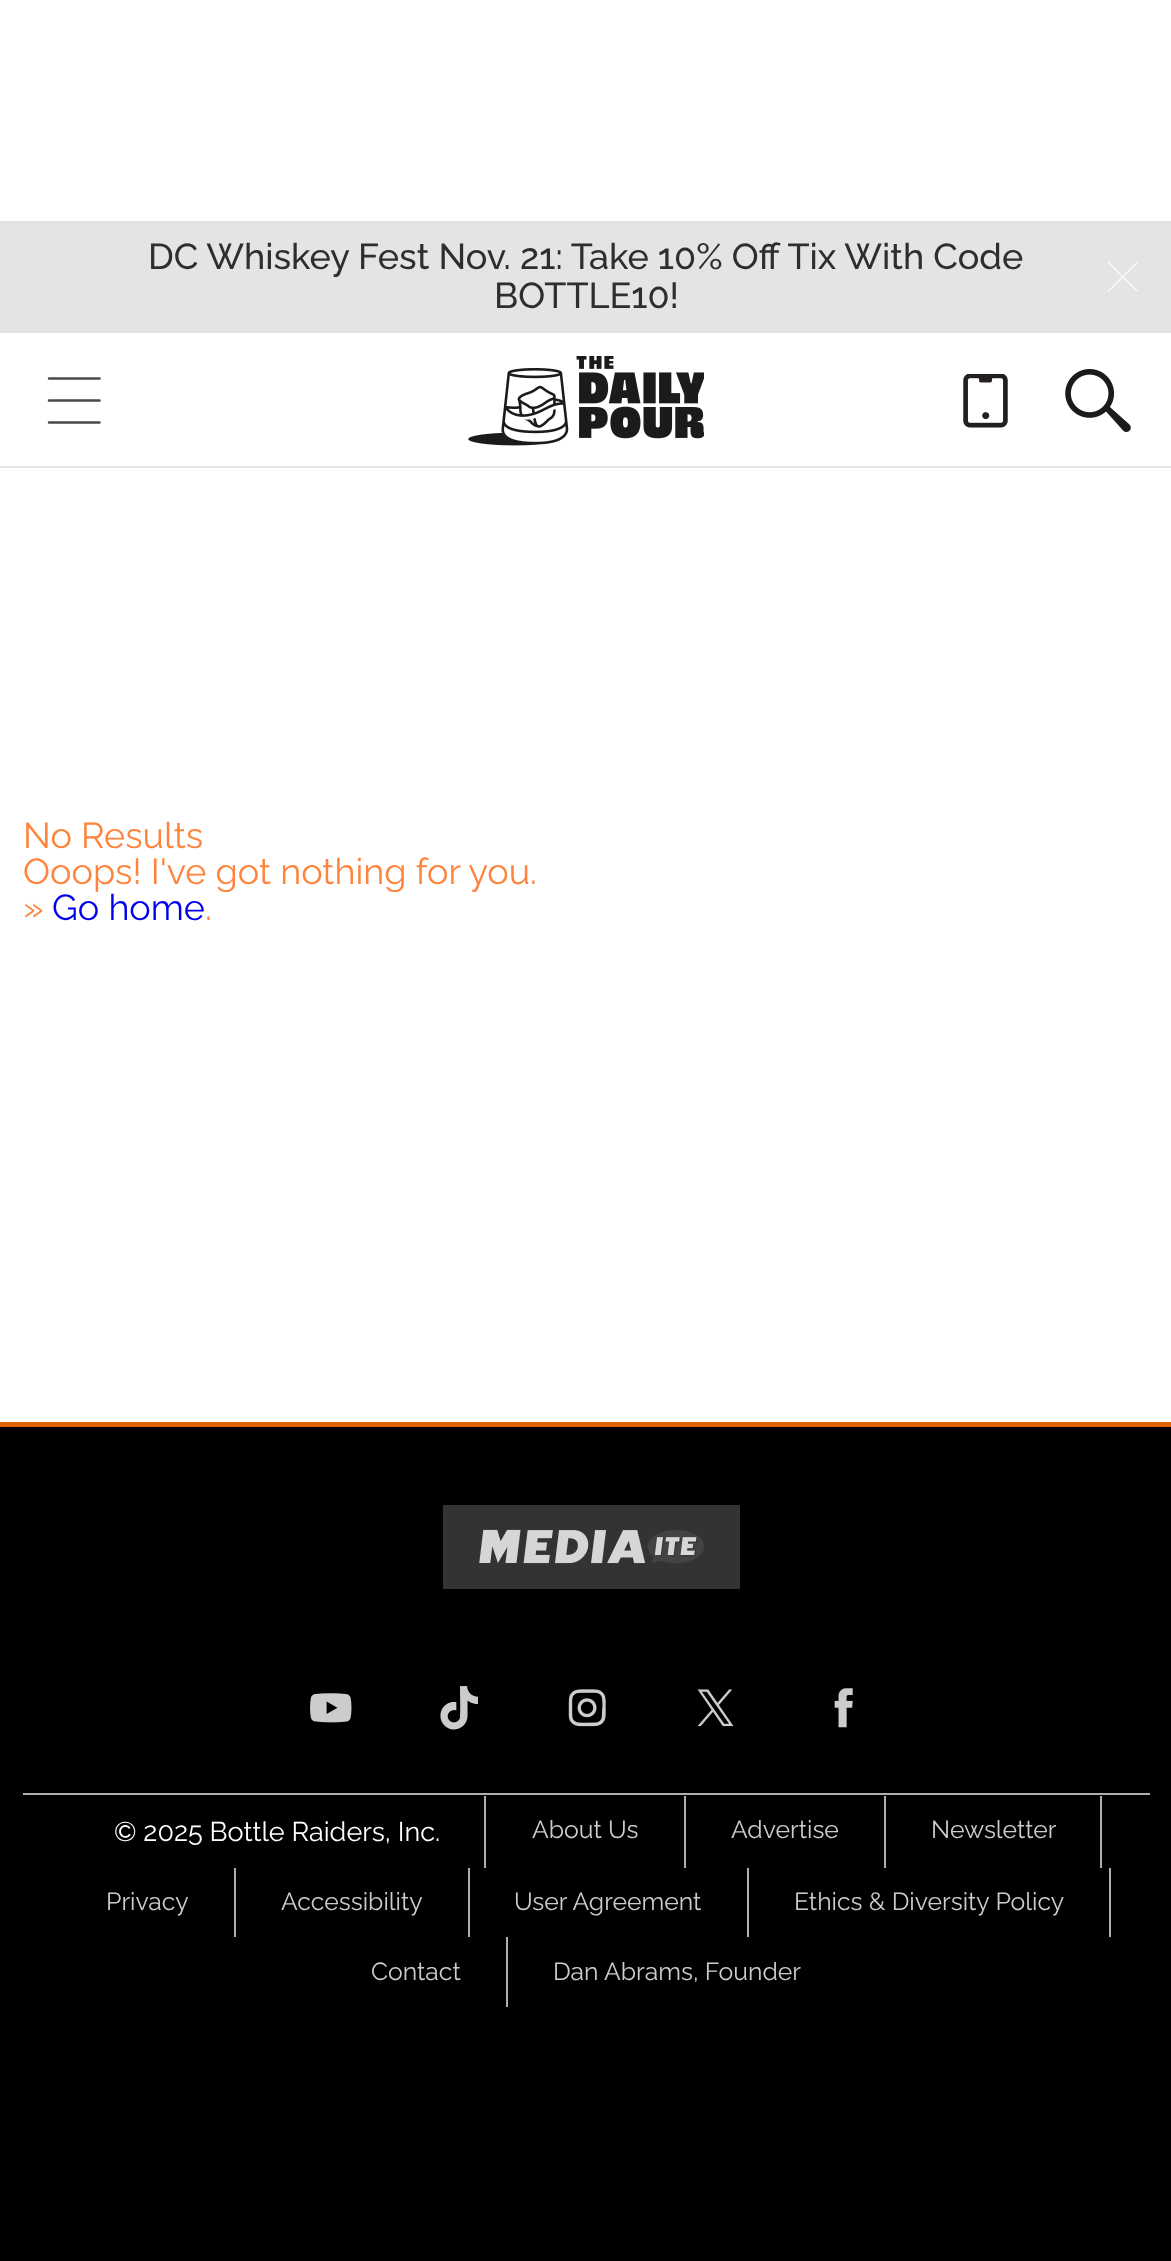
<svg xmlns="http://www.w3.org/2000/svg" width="1171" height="2261">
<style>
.a{font:500 36px Raleway;fill:#2e2e2e}
.b{font:36px Raleway;fill:#ff833a}
.c{font:36px Raleway;fill:#00e}
.d{font:27px Raleway;fill:#fff}
.e{font:24.75px Raleway;fill:#ccc}
</style>
<rect width="100%" height="100%" fill="#fff"/>
<path fill="#e4e4e4" d="M0 221h1171v112H0z"/>
<path fill="none" stroke="#fafafa" stroke-width="1.4" stroke-linecap="round" d="M1108.5 262.5l28.5 28.5m0-28.5l-28.5 28.5"/>
<path fill="#e6e6e6" d="M0 466h1171v2H0z"/>
<path fill="none" stroke="#494949" stroke-width="2.5" stroke-linecap="round" d="M49 378.5h50.5m-50.5 22h50.5m-50.5 22h50.5"/>
<image href="1.png" x="468" y="356" width="236" height="90"/>
<image href="2.png" x="963" y="374" width="45" height="54"/>
<image href="3.png" x="1065" y="369" width="66" height="63"/>
<path fill="#000" d="M0 1427h1171v834H0z"/>
<path fill="#e16203" d="M0 1422h1171v5H0z"/>
<path fill="#333" d="M443 1505h297v84H443z"/>
<image href="4.png" x="479" y="1529" width="225" height="35"/>
<image href="5.png" x="310" y="1693" width="42" height="30"/>
<image href="6.png" x="440" y="1686" width="38" height="44"/>
<image href="7.png" x="568" y="1689" width="38" height="38"/>
<image href="8.png" x="697" y="1689" width="37" height="38"/>
<image href="9.png" x="834" y="1688" width="19" height="40"/>
<path fill="#aeaeae" d="M23 1793h1127v2H23z"/>
<path fill="#aeaeae" d="M484 1796h2v72H484z"/>
<path fill="#aeaeae" d="M684 1796h2v72H684z"/>
<path fill="#aeaeae" d="M884 1796h2v72H884z"/>
<path fill="#aeaeae" d="M1100 1796h2v72H1100z"/>
<path fill="#aeaeae" d="M234 1868h2v69H234z"/>
<path fill="#aeaeae" d="M468 1868h2v69H468z"/>
<path fill="#aeaeae" d="M747 1868h2v69H747z"/>
<path fill="#aeaeae" d="M1109 1868h2v69H1109z"/>
<path fill="#aeaeae" d="M506 1937h2v70H506z"/>
<text class="a" x="148" y="269">DC Whiskey Fest Nov. 21: Take 10% Off Tix With Code</text>
<text class="a" x="494" y="308">BOTTLE10!</text>
<text class="b" x="23" y="848">No Results</text>
<text class="b" x="23" y="884">Ooops! I've got nothing for you.</text>
<text class="b" x="23" y="920">»</text>
<text class="c" x="52" y="920">Go home</text>
<text class="b" x="205" y="920">.</text>
<text class="d" x="114" y="1841">© 2025 Bottle Raiders, Inc.</text>
<text class="e" x="532" y="1838">About Us</text>
<text class="e" x="731" y="1838">Advertise</text>
<text class="e" x="931" y="1838">Newsletter</text>
<text class="e" x="106" y="1910">Privacy</text>
<text class="e" x="281" y="1910">Accessibility</text>
<text class="e" x="514" y="1910">User Agreement</text>
<text class="e" x="794" y="1910">Ethics &amp; Diversity Policy</text>
<text class="e" x="371" y="1980">Contact</text>
<text class="e" x="553" y="1980">Dan Abrams, Founder</text>
</svg>
